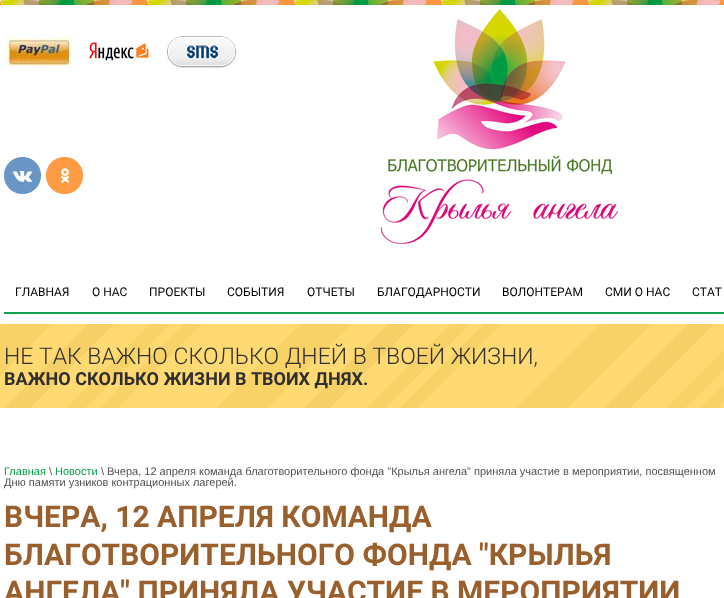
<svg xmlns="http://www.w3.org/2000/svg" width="724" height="598">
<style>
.a{font:12px roboto;fill:#000}
.b{font:300 23px Roboto;fill:#2f2f2f}
.c{font:bold 18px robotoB;fill:#2f2f2f}
.d{font:11px Liberation Sans;fill:#009c45}
.e{font:11px Liberation Sans;fill:#505050}
.f{font:bold 30px robotoB;fill:#99602d}
</style>
<rect width="100%" height="100%" fill="#fff"/>
<image href="1.png" x="0" y="0" width="724" height="5"/>
<image href="2.png" x="4" y="35" width="71" height="32"/>
<image href="3.png" x="89" y="42" width="60" height="19"/>
<image href="4.png" x="167" y="36" width="70" height="33"/>
<image href="5.png" x="381" y="9" width="237" height="235"/>
<image href="6.png" x="4" y="157" width="37" height="37"/>
<image href="7.png" x="46" y="157" width="37" height="37"/>
<path fill="#0da14e" d="M4 312h720v2H4z"/>
<image href="8.png" x="0" y="324" width="724" height="84"/>
<text class="a" x="15" y="296">ГЛАВНАЯ</text>
<text class="a" x="92" y="296">О НАС</text>
<text class="a" x="149" y="296">ПРОЕКТЫ</text>
<text class="a" x="227" y="296">СОБЫТИЯ</text>
<text class="a" x="307" y="296">ОТЧЕТЫ</text>
<text class="a" x="377" y="296">БЛАГОДАРНОСТИ</text>
<text class="a" x="502" y="296">ВОЛОНТЕРАМ</text>
<text class="a" x="605" y="296">СМИ О НАС</text>
<text class="a" x="692" y="296">СТАТ</text>
<text class="b" x="4" y="364">НЕ ТАК ВАЖНО СКОЛЬКО ДНЕЙ В ТВОЕЙ ЖИЗНИ,</text>
<text class="c" x="4" y="385">ВАЖНО СКОЛЬКО ЖИЗНИ В ТВОИХ ДНЯХ.</text>
<text class="d" x="4" y="475">Главная</text>
<text class="e" x="49" y="475">\</text>
<text class="d" x="55" y="475">Новости</text>
<text class="e" x="101" y="475">\ Вчера, 12 апреля команда благотворительного фонда "Крылья ангела" приняла участие в мероприятии, посвященном</text>
<text class="e" x="4" y="486">Дню памяти узников контрационных лагерей.</text>
<text class="f" x="4" y="527">ВЧЕРА, 12 АПРЕЛЯ КОМАНДА</text>
<text class="f" x="4" y="565">БЛАГОТВОРИТЕЛЬНОГО ФОНДА "КРЫЛЬЯ</text>
<text class="f" x="4" y="602">АНГЕЛА" ПРИНЯЛА УЧАСТИЕ В МЕРОПРИЯТИИ</text>
</svg>
